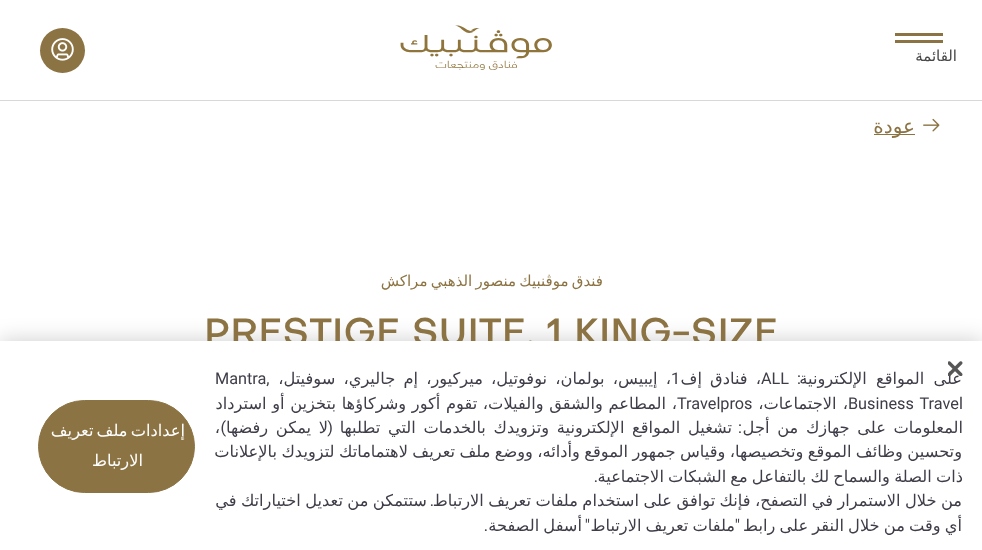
<svg xmlns="http://www.w3.org/2000/svg" width="982" height="550">
<style>
.a{font:15px DejaVu Sans;letter-spacing:2.5px;direction:rtl;fill:#474747}
.b{font:20px DejaVu Sans;direction:rtl;fill:#8c7343}
.c{font:15px DejaVu Sans;direction:rtl;fill:#8c7343}
.d{font:500 37.5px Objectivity;fill:#8c7343}
.e{font:16.25px DejaVu Sans;direction:rtl;fill:#3e3d48}
.f{font:16.25px Roboto;direction:rtl;fill:#3e3d48}
.g{font:16.25px Roboto;fill:#3e3d48}
.h{font:16.25px DejaVu Sans;letter-spacing:0.2px;direction:rtl;fill:#fff}
</style>
<rect width="100%" height="100%" fill="#fff"/>
<path fill="#d8d8d8" d="M0 100h982v1H0z"/>
<path fill="#8c7343" d="M895 33h48v3H895z"/>
<path fill="#8c7343" d="M895 40h48v3H895z"/>
<image href="1.png" x="400" y="25" width="152" height="45"/>
<circle fill="#8c7343" cx="62.5" cy="50.5" r="22.5"/>
<image href="2.png" x="51" y="38" width="23" height="23"/>
<image href="3.png" x="923" y="118" width="17" height="14"/>
<path fill="#8c7343" d="M874 134h41v1H874z"/>
<path fill="#00000033" filter="blur(11px)" d="M0 341h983v209H0z"/>
<text class="a" x="957" y="61">القائمة</text>
<text class="b" x="915" y="133">عودة</text>
<text class="c" x="603" y="286" word-spacing="-1.5">فندق موڤنبيك منصور الذهبي مراكش</text>
<text class="d" x="204" y="345">PRESTIGE SUITE, 1 KING-SIZE</text>
<path fill="#fff" d="M0 341h982v209H0z"/>
<text class="e" x="962" y="384" word-spacing="4">على المواقع الإلكترونية</text>
<image href="4.png" x="948" y="361" width="15" height="15"/>
<text class="f" x="801" y="384">:</text>
<text class="g" x="761" y="384">ALL</text>
<text class="e" x="761" y="384" word-spacing="3">، فنادق إف</text>
<text class="g" x="671" y="384">1</text>
<text class="e" x="671" y="384" word-spacing="3">، إيبيس، بولمان، نوفوتيل، ميركيور، إم جاليري، سوفيتل،</text>
<text class="g" x="215" y="384">Mantra,</text>
<text class="g" x="848" y="409" word-spacing="2">Business Travel</text>
<text class="e" x="848" y="409" word-spacing="1">، الاجتماعات،</text>
<text class="g" x="677" y="409">Travelpros</text>
<text class="e" x="677" y="409" word-spacing="0.5">، المطاعم والشقق والفيلات، تقوم أكور وشركاؤها بتخزين أو استرداد</text>
<text class="e" x="963" y="433" word-spacing="2.5">المعلومات على جهازك من أجل</text>
<text class="f" x="742" y="433">:</text>
<text class="e" x="732" y="433" word-spacing="2.5">تشغيل المواقع الإلكترونية وتزويدك بالخدمات التي تطلبها</text>
<text class="f" x="333" y="433">(</text>
<text class="e" x="328" y="433" word-spacing="2.5">لا يمكن رفضها</text>
<text class="f" x="226" y="433">)</text>
<text class="e" x="220" y="433">،</text>
<text class="e" x="962" y="457" word-spacing="-0.75">وتحسين وظائف الموقع وتخصيصها، وقياس جمهور الموقع وأدائه، ووضع ملف تعريف لاهتماماتك لتزويدك بالإعلانات</text>
<text class="e" x="963" y="482" word-spacing="-1">ذات الصلة والسماح لك بالتفاعل مع الشبكات الاجتماعية</text>
<text class="f" x="598" y="482">.</text>
<text class="e" x="962" y="506" word-spacing="-0.75">من خلال الاستمرار في التصفح، فإنك توافق على استخدام ملفات تعريف الارتباط</text>
<text class="f" x="434" y="506">.</text>
<text class="e" x="427" y="506" word-spacing="-0.75">ستتمكن من تعديل اختياراتك في</text>
<text class="e" x="962" y="531" word-spacing="-1">أي وقت من خلال النقر على رابط</text>
<text class="f" x="740" y="531">"</text>
<text class="e" x="735" y="531" word-spacing="-1">ملفات تعريف الارتباط</text>
<text class="f" x="590" y="531">"</text>
<text class="e" x="582" y="531" word-spacing="-1">أسفل الصفحة</text>
<text class="f" x="488" y="531">.</text>
<rect fill="#8c7343" stroke="#8c7343" x="38.5" y="400.5" width="156" height="92" rx="46"/>
<text class="h" x="185" y="436" word-spacing="-2">إعدادات ملف تعريف</text>
<text class="h" x="143" y="466">الارتباط</text>
</svg>
